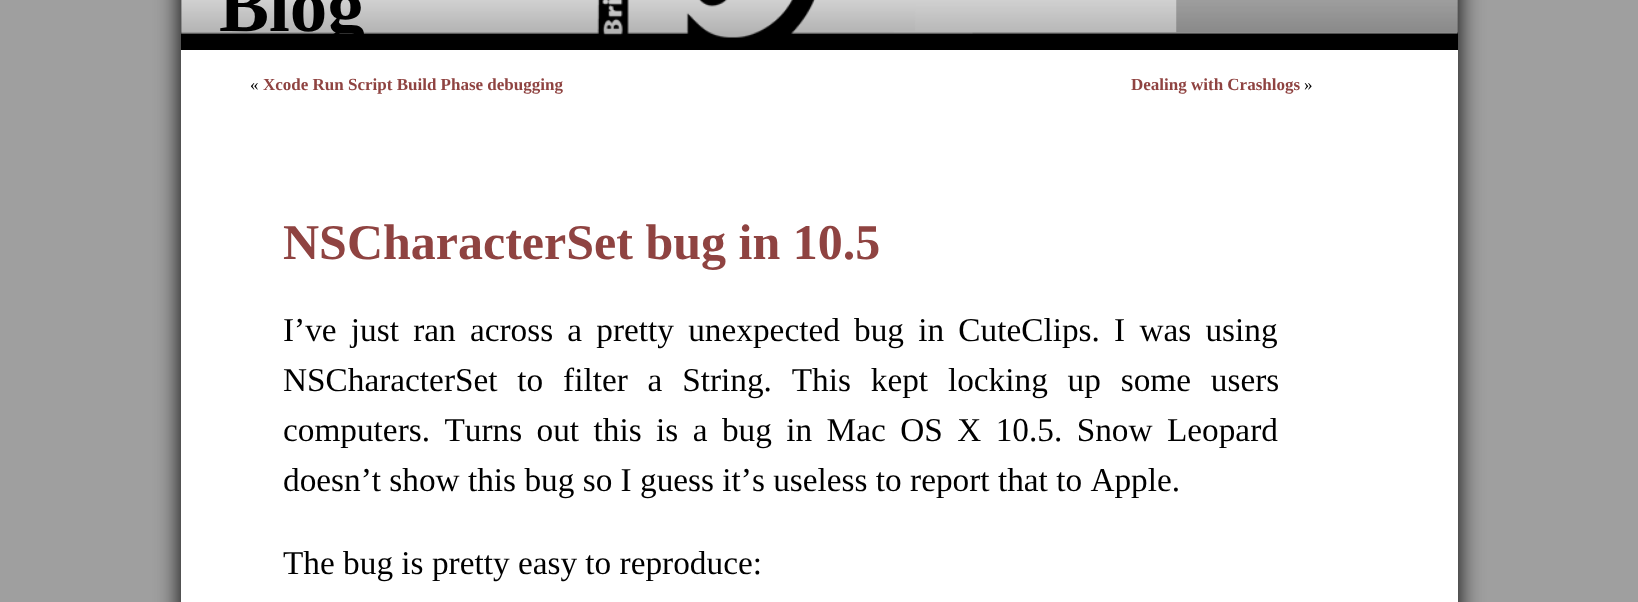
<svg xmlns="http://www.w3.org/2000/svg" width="1638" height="602">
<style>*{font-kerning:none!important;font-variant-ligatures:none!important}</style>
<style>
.a{font:bold 75px Liberation Serif;fill:#000}
.b{font:17px Liberation Serif;fill:#000}
.c{font:bold 17px Liberation Serif;fill:#8f4341}
.d{font:bold 50px Liberation Serif;fill:#8f4341}
.e{font:33.3px Liberation Serif;fill:#000}
</style>
<rect width="100%" height="100%" fill="#9f9f9f"/>
<path fill="#000" filter="blur(12.5px)" d="M181 -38h1277v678H181z"/>
<path fill="#000" d="M181 0h1277v50H181z"/>
<image href="1.png" x="181" y="0" width="1277" height="38"/>
<image href="2.png" x="1176" y="0" width="282" height="33"/>
<path fill="#fff" d="M181 50h1277v552H181z"/>
<text class="a" x="219" y="31">Blog</text>
<text class="b" x="250" y="90">«</text>
<text class="c" x="263" y="90">Xcode Run Script Build Phase debugging</text>
<text class="c" x="1131" y="90">Dealing with Crashlogs</text>
<text class="b" x="1304" y="90">»</text>
<text class="d" x="283" y="259">NSCharacterSet bug in 10.5</text>
<text class="e" x="283" y="341" word-spacing="5.9">I’ve just ran across a pretty unexpected bug in CuteClips. I was using</text>
<text class="e" x="283" y="391" word-spacing="11.5">NSCharacterSet to filter a String. This kept locking up some users</text>
<text class="e" x="283" y="441" word-spacing="6.1">computers. Turns out this is a bug in Mac OS X 10.5. Snow Leopard</text>
<text class="e" x="283" y="491">doesn’t show this bug so I guess it’s useless to report that to Apple.</text>
<text class="e" x="283" y="574">The bug is pretty easy to reproduce:</text>
</svg>
